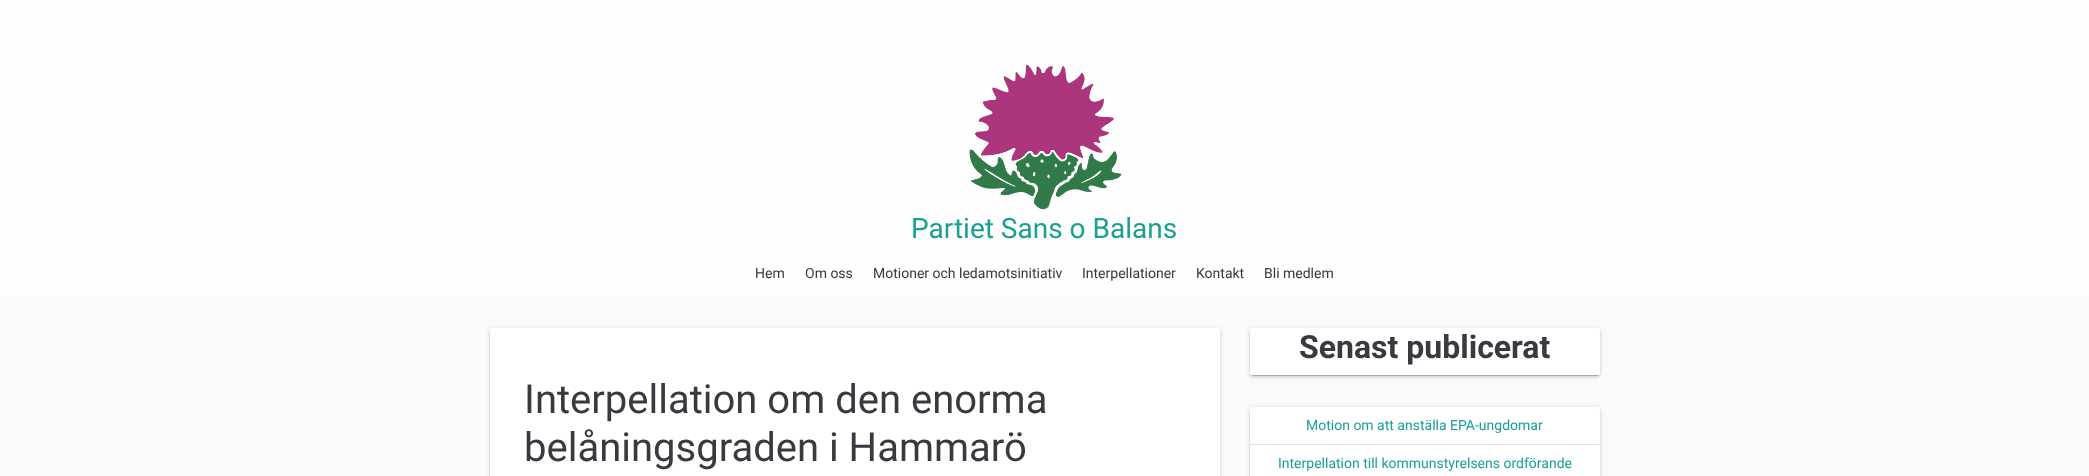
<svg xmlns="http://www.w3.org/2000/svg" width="2089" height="476">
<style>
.a{font:28px Roboto;fill:#19a093}
.b{font:14px Roboto;fill:#383838}
.c{font:40px Roboto;fill:#373a3e}
.d{font:bold 32px Roboto;fill:#373a3e}
.e{font:14px Roboto;fill:#19a093}
</style>
<rect width="100%" height="100%" fill="#fafafa"/>
<path fill="#fefefe" d="M0 0h2089v296H0z"/>
<image href="1.png" x="969" y="64" width="153" height="146"/>
<rect fill="#1919191f" filter="blur(2.5px)" x="490" y="329" width="730" height="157" rx="2"/>
<rect fill="#19191924" filter="blur(1px)" x="490" y="330" width="730" height="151" rx="2"/>
<rect fill="#fff" x="490" y="328" width="730" height="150" rx="2"/>
<rect fill="#1919191f" filter="blur(2.5px)" x="1250" y="329" width="350" height="47" rx="2"/>
<path fill="#19191933" filter="blur(0.5px)" d="M1252 333h346v43H1252z"/>
<rect fill="#19191924" filter="blur(1px)" x="1250" y="330" width="350" height="47" rx="2"/>
<rect fill="#fff" x="1250" y="328" width="350" height="47" rx="2"/>
<rect fill="#1919191f" filter="blur(2.5px)" x="1250" y="408" width="350" height="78" rx="2"/>
<rect fill="#19191924" filter="blur(1px)" x="1250" y="409" width="350" height="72" rx="2"/>
<rect fill="#fff" x="1250" y="407" width="350" height="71" rx="2"/>
<path fill="#e2e2e2" d="M1250 444h350v1H1250z"/>
<text class="a" x="911" y="238">Partiet Sans o Balans</text>
<text class="b" x="755" y="278">Hem</text>
<text class="b" x="805" y="278">Om oss</text>
<text class="b" x="873" y="278">Motioner och ledamotsinitiativ</text>
<text class="b" x="1082" y="278">Interpellationer</text>
<text class="b" x="1196" y="278">Kontakt</text>
<text class="b" x="1264" y="278">Bli medlem</text>
<text class="c" x="524" y="413">Interpellation om den enorma</text>
<text class="c" x="524" y="461">belåningsgraden i Hammarö</text>
<text class="d" x="1299" y="358">Senast publicerat</text>
<text class="e" x="1306" y="430">Motion om att anställa EPA-ungdomar</text>
<text class="e" x="1278" y="468">Interpellation till kommunstyrelsens ordförande</text>
</svg>
